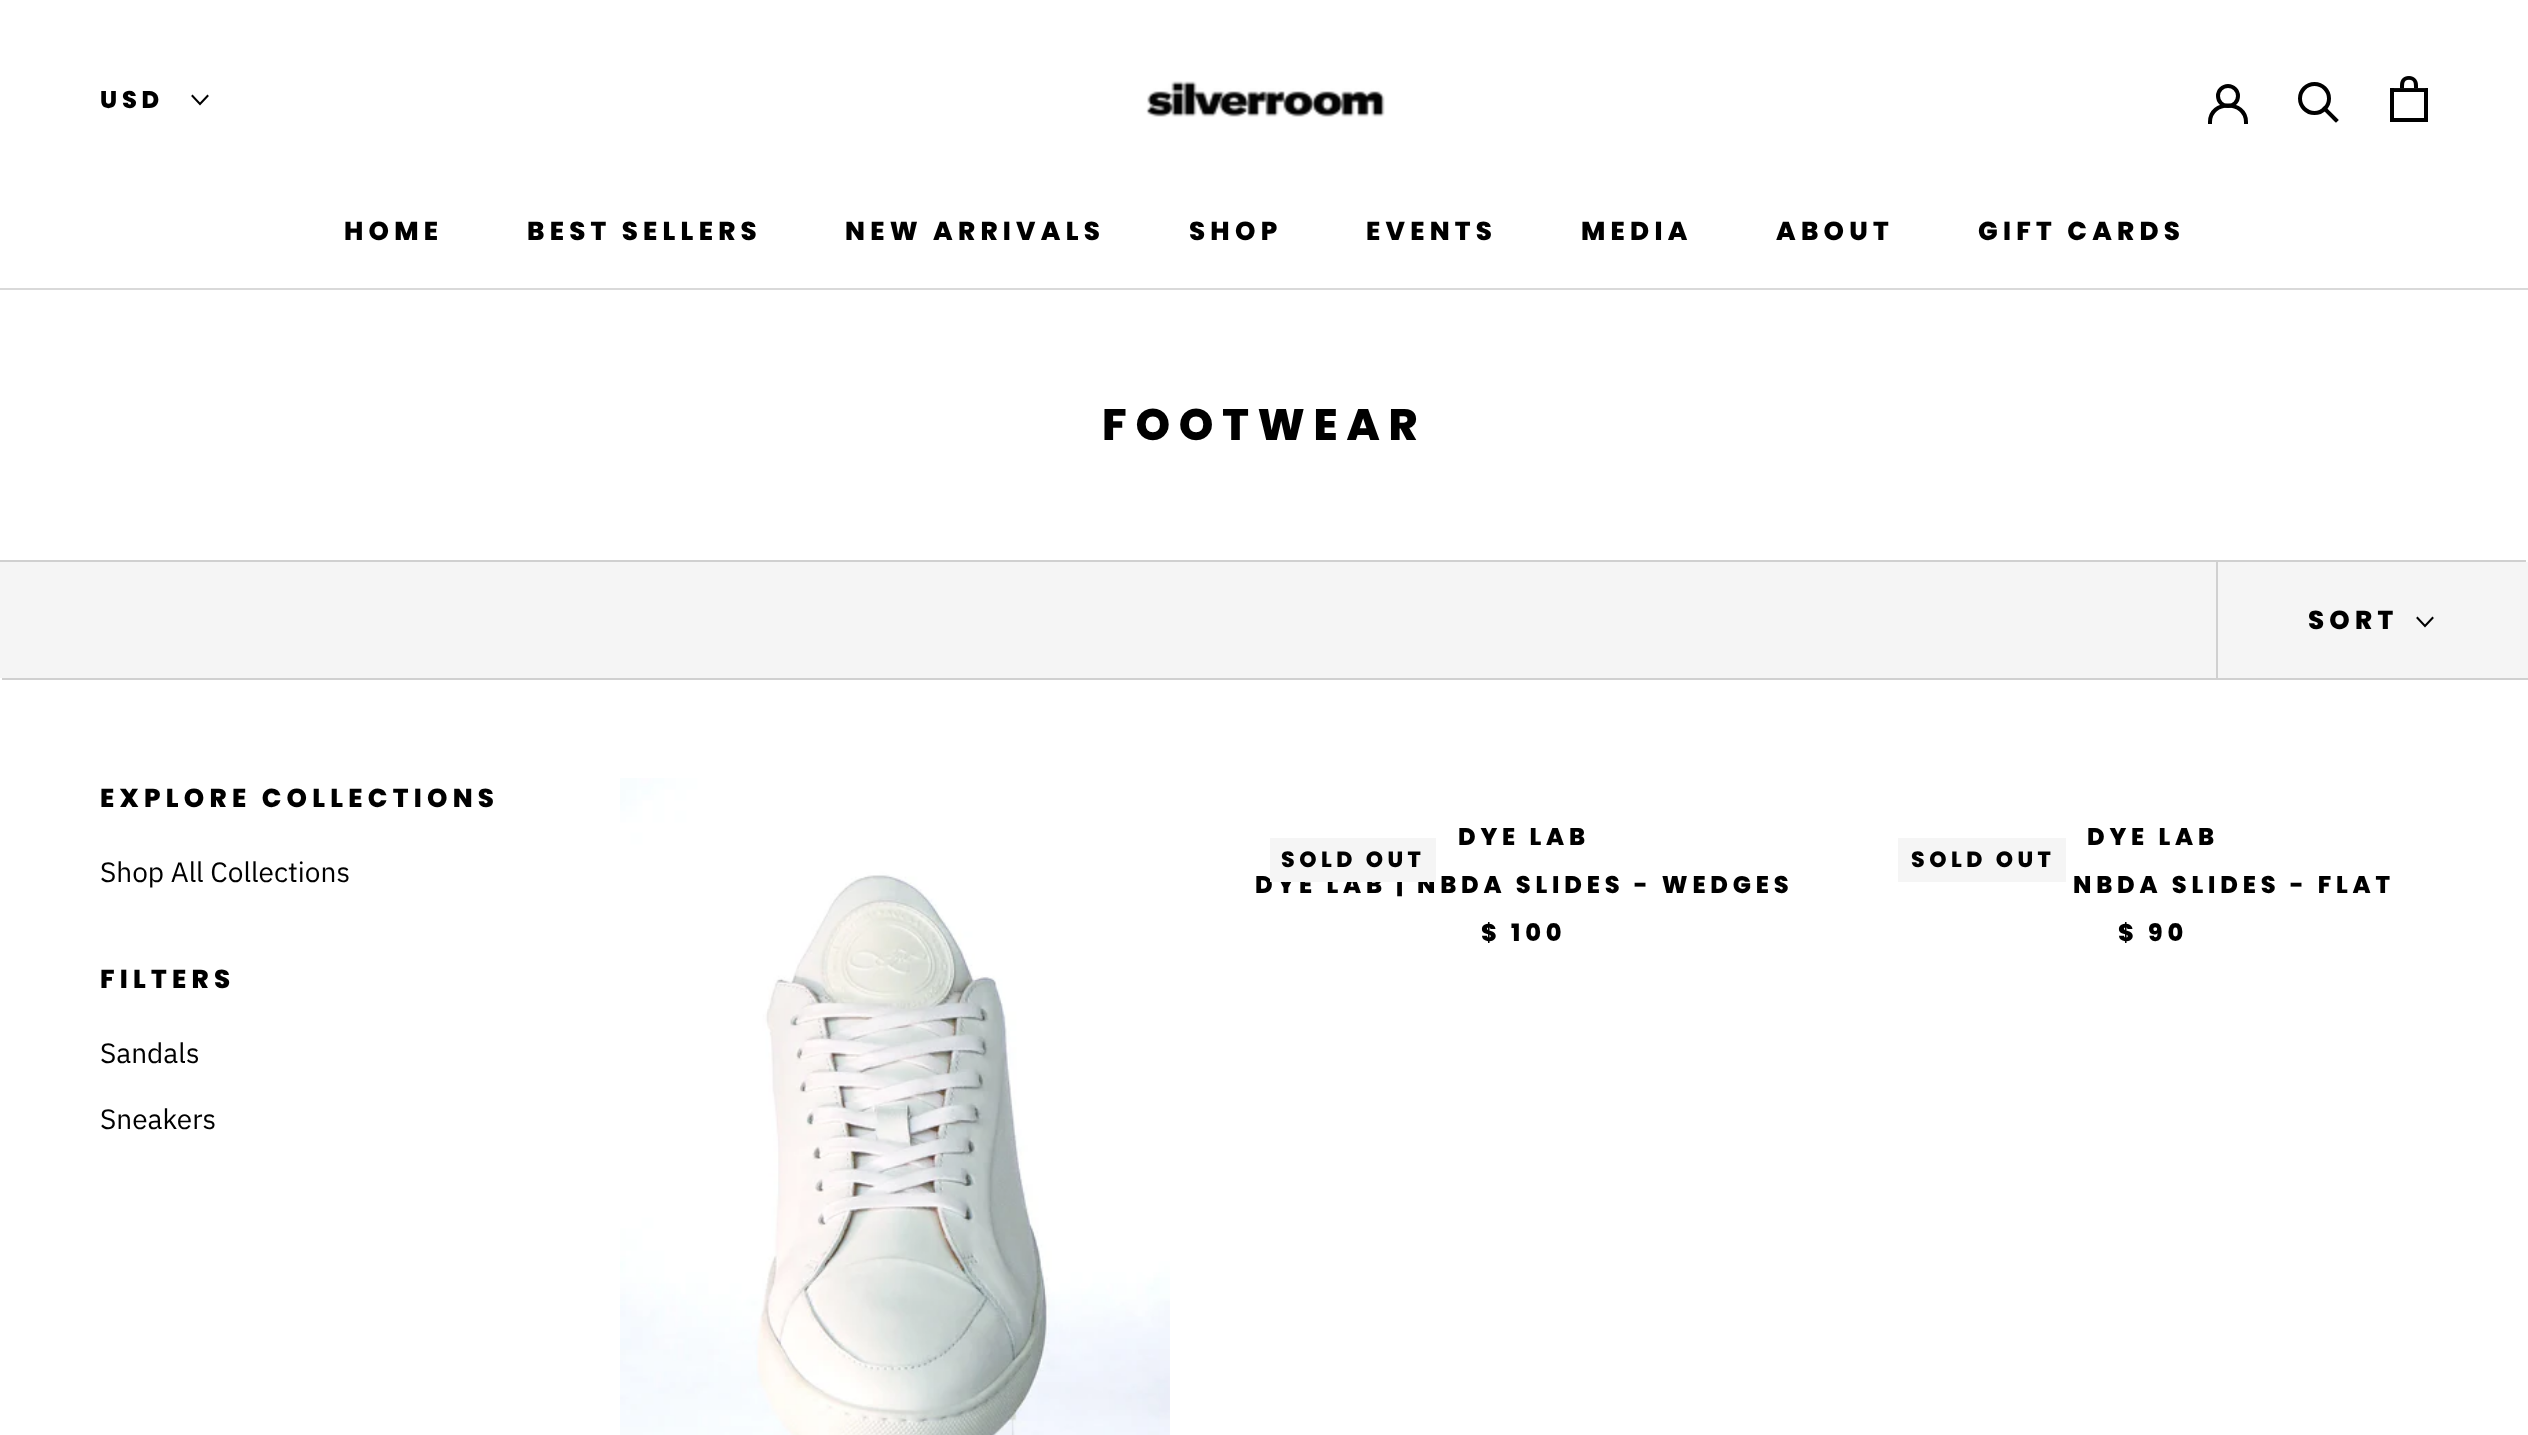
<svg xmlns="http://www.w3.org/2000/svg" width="2528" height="1435">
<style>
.a{font:800 24px Poppins;letter-spacing:4.8px;fill:#000}
.b{font:800 26px Poppins;letter-spacing:5.25px;fill:#000}
.c{font:800 44px Poppins;letter-spacing:8.75px;fill:#000}
.d{font:28px IBM Plex Sans;fill:#000}
.e{font:800 22px Poppins;letter-spacing:4.5px;fill:#000}
</style>
<rect width="100%" height="100%" fill="#fff"/>
<path fill="#d9d9d9" d="M0 288h2528v2H0z"/>
<image href="1.png" x="1146" y="81" width="239" height="36"/>
<path fill="none" stroke="#000" stroke-width="4" stroke-linecap="square" d="M2210 122c0-22 36-22 36 0"/>
<circle fill="none" stroke="#000" stroke-width="4" cx="2228" cy="96" r="10"/>
<path fill="none" stroke="#000" stroke-width="4" stroke-linecap="square" d="M2336 120l-11.5-11.5"/>
<circle fill="none" stroke="#000" stroke-width="4" cx="2314.5" cy="98.5" r="14.5"/>
<image href="2.png" x="2390" y="76" width="38" height="46"/>
<path fill="none" stroke="#000" stroke-width="2" stroke-linecap="square" d="M207.5 96l-7.5 8l-7.5-8"/>
<path fill="#d0d0d0" d="M-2 560v116h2v-114h2526v-2z"/>
<path fill="#d0d0d0" d="M2 678v2h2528v-116h-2v114z"/>
<path fill="#f5f5f5" d="M0 562h2528v116H0z"/>
<path fill="#d0d0d0" d="M2216 562h2v116H2216z"/>
<path fill="none" stroke="#000" stroke-width="2" stroke-linecap="square" d="M2432.5 618l-7.5 8l-7.5-8"/>
<image href="3.png" x="620" y="778" width="550" height="657"/>
<path fill="#f5f5f5" d="M1898 838h168v44H1898z"/>
<text class="a" x="100" y="108">USD</text>
<text class="b" x="344" y="240">HOME</text>
<text class="b" x="527" y="240">BEST SELLERS</text>
<text class="b" x="845" y="240">NEW ARRIVALS</text>
<text class="b" x="1189" y="240">SHOP</text>
<text class="b" x="1366" y="240">EVENTS</text>
<text class="b" x="1581" y="240">MEDIA</text>
<text class="b" x="1776" y="240">ABOUT</text>
<text class="b" x="1978" y="240">GIFT CARDS</text>
<text class="c" x="1102" y="440">FOOTWEAR</text>
<text class="b" x="2308" y="629">SORT</text>
<text class="b" x="100" y="807">EXPLORE COLLECTIONS</text>
<text class="d" x="100" y="882">Shop All Collections</text>
<text class="b" x="100" y="988">FILTERS</text>
<text class="d" x="100" y="1063">Sandals</text>
<text class="d" x="100" y="1129">Sneakers</text>
<text class="a" x="1458" y="845">DYE LAB</text>
<text class="a" x="1255" y="893">DYE LAB | NBDA SLIDES - WEDGES</text>
<text class="a" x="1481" y="941">$ 100</text>
<path fill="#f5f5f5" d="M1270 838h166v44H1270z"/>
<text class="e" x="1281" y="867">SOLD OUT</text>
<text class="e" x="1911" y="867">SOLD OUT</text>
<text class="a" x="2087" y="845">DYE LAB</text>
<text class="a" x="2073" y="893">NBDA SLIDES - FLAT</text>
<text class="a" x="2118" y="941">$ 90</text>
</svg>
